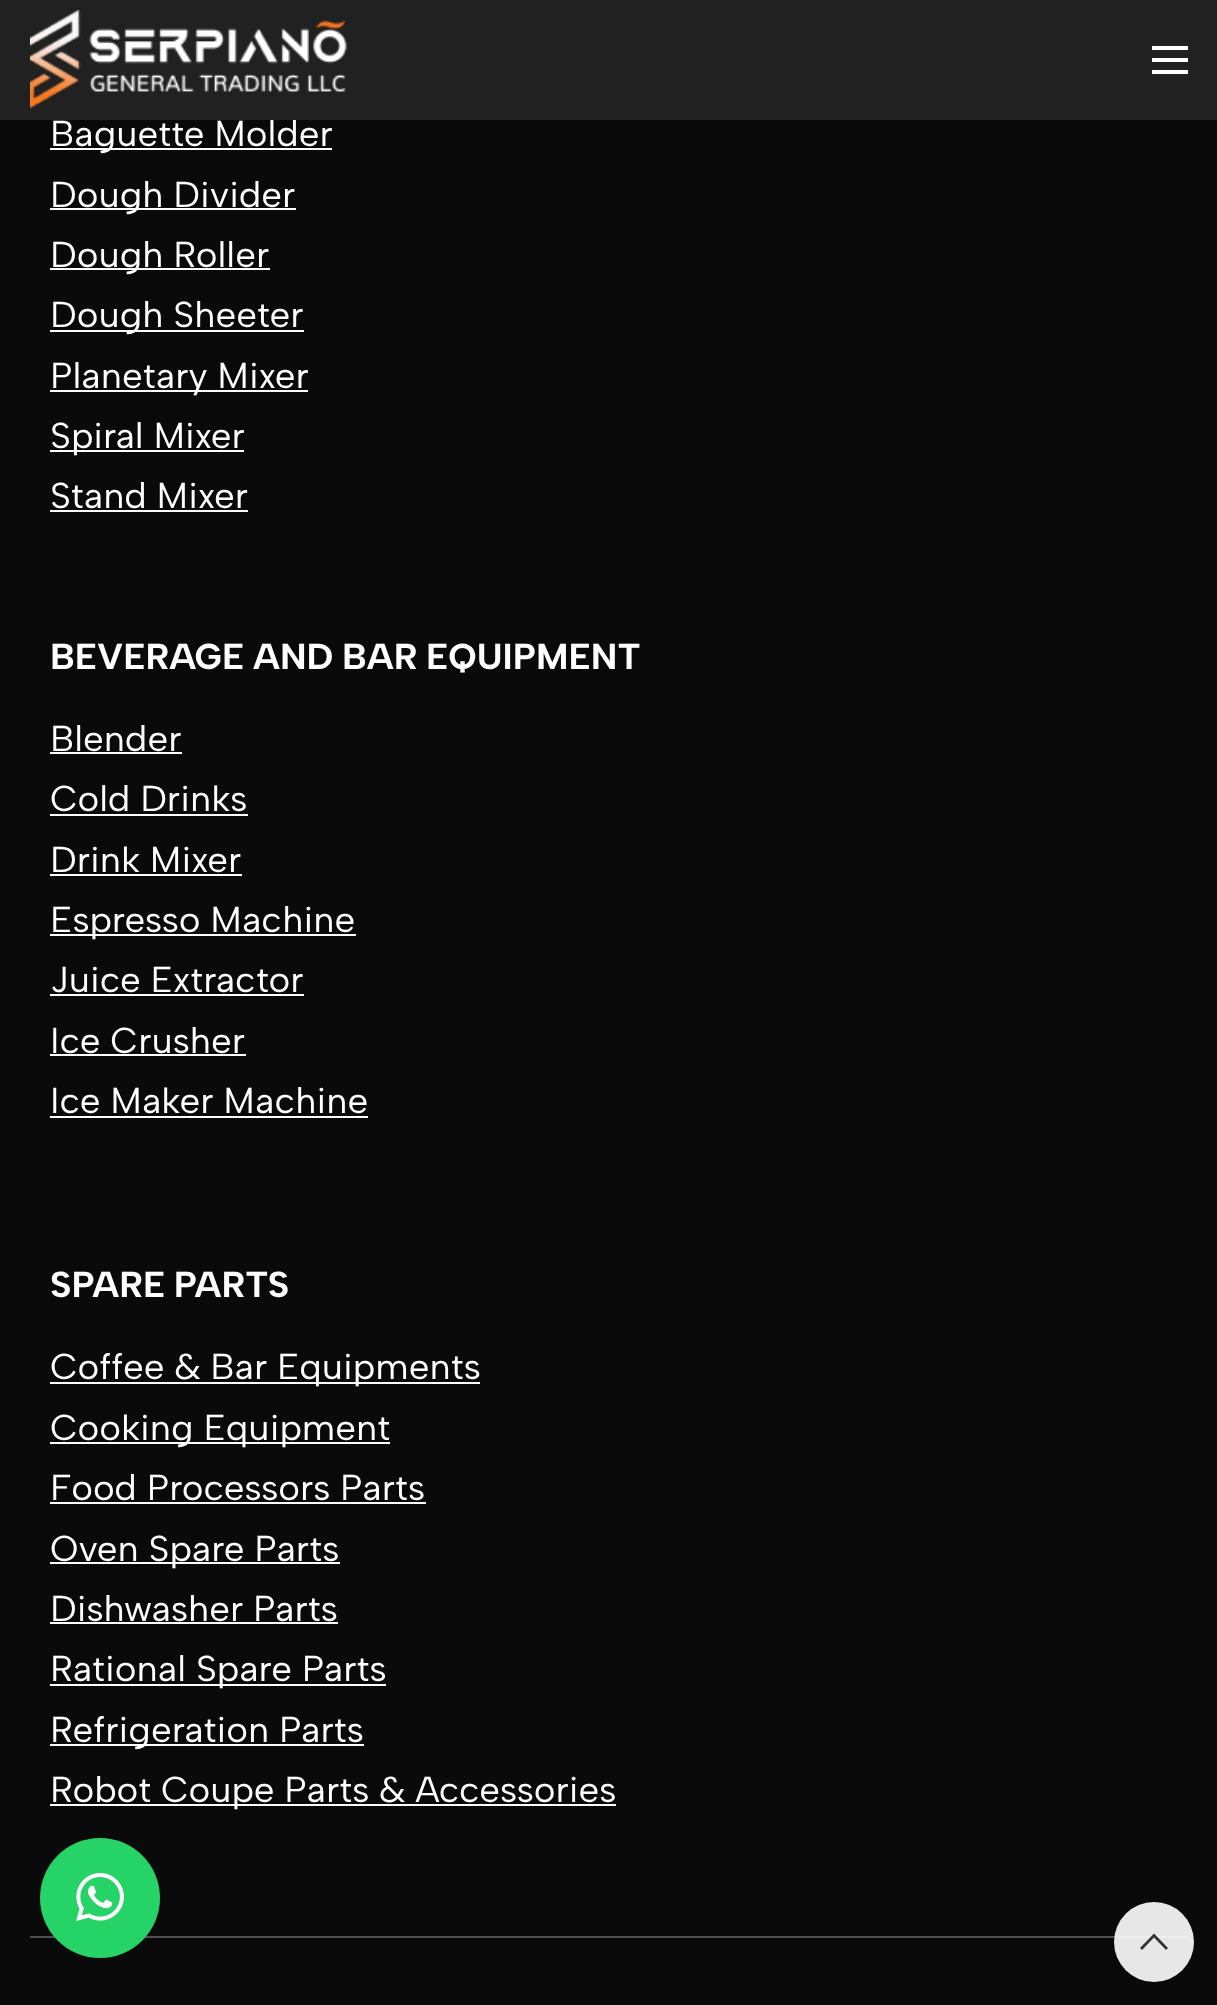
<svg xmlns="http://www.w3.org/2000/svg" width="1217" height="2005">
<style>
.a{font:36px Albert Sans;fill:#fff}
.b{font:bold 36px Albert Sans;fill:#fff}
</style>
<rect width="100%" height="100%" fill="#0a0a0a"/>
<path fill="#0000001a" filter="blur(3px)" d="M0 2h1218v120H0z"/>
<path fill="#212121" d="M0 0h1217v120H0z"/>
<image href="1.png" x="30" y="10" width="317" height="99"/>
<path fill="#fff" d="M1152 58h36v4H1152z"/>
<path fill="#fff" d="M1152 46h36v4H1152z"/>
<path fill="#fff" d="M1152 70h36v4H1152z"/>
<path fill="#4f4f4f" d="M30 1936h1158v2H30z"/>
<path fill="#fff" d="M50 148h282v2H50z"/>
<path fill="#fff" d="M50 208h246v2H50z"/>
<path fill="#fff" d="M50 268h220v2H50z"/>
<path fill="#fff" d="M50 330h254v2H50z"/>
<path fill="#fff" d="M50 390h258v2H50z"/>
<path fill="#fff" d="M50 450h194v2H50z"/>
<path fill="#fff" d="M50 510h198v2H50z"/>
<path fill="#fff" d="M50 752h132v2H50z"/>
<path fill="#fff" d="M50 814h198v2H50z"/>
<path fill="#fff" d="M50 874h192v2H50z"/>
<path fill="#fff" d="M50 934h306v2H50z"/>
<path fill="#fff" d="M50 994h254v2H50z"/>
<path fill="#fff" d="M50 1054h196v2H50z"/>
<path fill="#fff" d="M50 1116h318v2H50z"/>
<path fill="#fff" d="M50 1382h430v2H50z"/>
<path fill="#fff" d="M50 1442h340v2H50z"/>
<path fill="#fff" d="M50 1502h376v2H50z"/>
<path fill="#fff" d="M50 1562h290v2H50z"/>
<path fill="#fff" d="M50 1622h288v2H50z"/>
<path fill="#fff" d="M50 1684h336v2H50z"/>
<path fill="#fff" d="M50 1744h314v2H50z"/>
<path fill="#fff" d="M50 1804h566v2H50z"/>
<circle fill="#25d366" cx="100" cy="1898" r="60"/>
<image href="2.png" x="76" y="1873" width="48" height="48"/>
<circle fill="#ffffffe6" cx="1154" cy="1942" r="40"/>
<path fill="#333" d="M1154 1933.5l14 14.5l-2 2l-12-12.5l-12 12.5l-2-2z"/>
<text class="a" x="50" y="146">Baguette Molder</text>
<text class="a" x="50" y="207">Dough Divider</text>
<text class="a" x="50" y="267">Dough Roller</text>
<text class="a" x="50" y="327">Dough Sheeter</text>
<text class="a" x="50" y="388">Planetary Mixer</text>
<text class="a" x="50" y="448">Spiral Mixer</text>
<text class="a" x="50" y="508">Stand Mixer</text>
<text class="b" x="50" y="669">BEVERAGE AND BAR EQUIPMENT</text>
<text class="a" x="50" y="751">Blender</text>
<text class="a" x="50" y="811">Cold Drinks</text>
<text class="a" x="50" y="872">Drink Mixer</text>
<text class="a" x="50" y="932">Espresso Machine</text>
<text class="a" x="50" y="992">Juice Extractor</text>
<text class="a" x="50" y="1053">Ice Crusher</text>
<text class="a" x="50" y="1113">Ice Maker Machine</text>
<text class="b" x="50" y="1297">SPARE PARTS</text>
<text class="a" x="50" y="1379">Coffee &amp; Bar Equipments</text>
<text class="a" x="50" y="1440">Cooking Equipment</text>
<text class="a" x="50" y="1500">Food Processors Parts</text>
<text class="a" x="50" y="1561">Oven Spare Parts</text>
<text class="a" x="50" y="1621">Dishwasher Parts</text>
<text class="a" x="50" y="1681">Rational Spare Parts</text>
<text class="a" x="50" y="1742">Refrigeration Parts</text>
<text class="a" x="50" y="1802">Robot Coupe Parts &amp; Accessories</text>
</svg>
